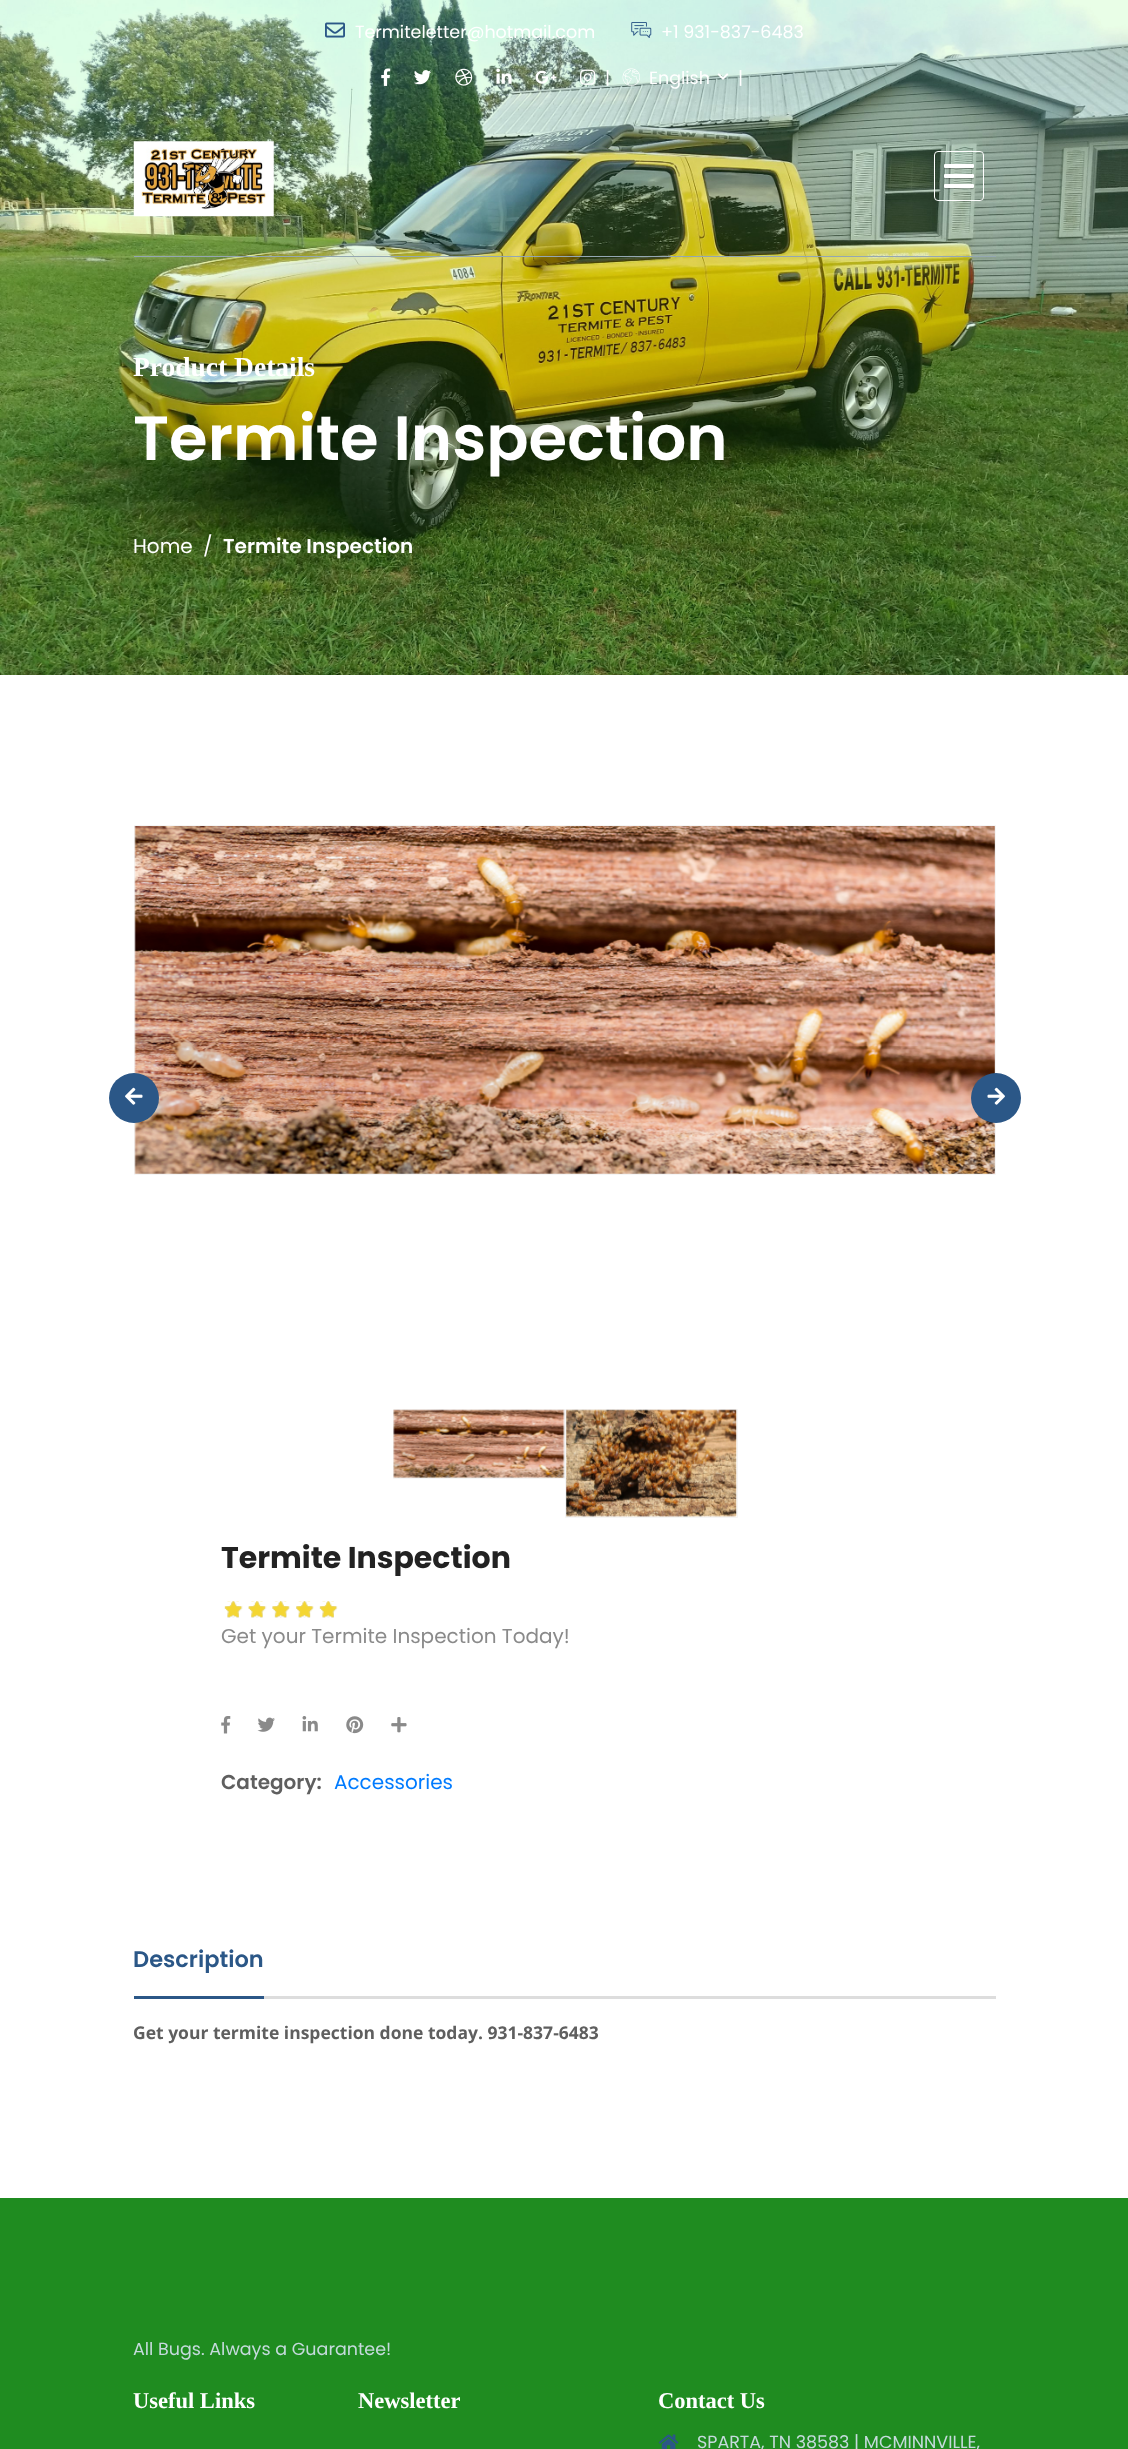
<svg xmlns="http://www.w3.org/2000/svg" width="1128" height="2449">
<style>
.a{font:17.5px Poppins;fill:#fff}
.b{font:bold 27.5px Liberation Serif;fill:#fff}
.c{font:600 62.5px Poppins;fill:#fff}
.d{font:20px Poppins;fill:#fff}
.e{font:600 20px Poppins;fill:#fff}
.f{font:bold 30px Poppins;fill:#222}
.g{font:20px Poppins;fill:#8a8a8a}
.h{font:600 20px Poppins;fill:#5f5f5f}
.i{font:20px Poppins;fill:#007bff}
.j{font:600 22.5px Poppins;fill:#2b5787}
.k{font:bold 17.5px Open Sans;fill:#5f5f5f}
.l{font:17.5px Poppins;fill:#c5dadc}
.m{font:bold 22.5px Liberation Serif;fill:#fff}
</style>
<rect width="100%" height="100%" fill="#fff"/>
<image href="12.png" x="0" y="0" width="1128" height="675"/>
<image href="1.png" x="325" y="22" width="20" height="16"/>
<image href="2.png" x="631" y="22" width="21" height="16"/>
<image href="3.png" x="381" y="68" width="10" height="18"/>
<image href="4.png" x="414" y="70" width="18" height="15"/>
<image href="5.png" x="455" y="68" width="18" height="18"/>
<image href="6.png" x="496" y="68" width="16" height="16"/>
<image href="7.png" x="535" y="70" width="22" height="14"/>
<image href="8.png" x="580" y="69" width="16" height="16"/>
<image href="9.png" x="622" y="68" width="18" height="18"/>
<image href="10.png" x="717" y="73" width="12" height="7"/>
<path fill="#94a7b2" d="M134 256h862v1H134z"/>
<image href="11.png" x="133" y="141" width="141" height="76"/>
<rect fill="none" stroke="#fff" x="934.5" y="151.5" width="49" height="49" rx="3.5"/>
<path fill="#00000040" d="M944 167c0 3.5 2.5 2 5.5 2h19c3 0 5.5 1.5 5.5-2v-1.5v.5c0 1-1 1.5-1.5 1.5h-27.5z"/>
<rect fill="#fff" x="944" y="164" width="30" height="4" rx="1"/>
<path fill="#00000040" d="M944 177c0 3.5 2.5 2 5.5 2h19c3 0 5.5 1.5 5.5-2v-1.5v.5c0 1-1 1.5-1.5 1.5h-27.5z"/>
<rect fill="#fff" x="944" y="174" width="30" height="4" rx="1"/>
<path fill="#00000040" d="M944 187c0 3.5 2.5 2 5.5 2h19c3 0 5.5 1.5 5.5-2v-1.5v.5c0 1-1 1.5-1.5 1.5h-27.5z"/>
<rect fill="#fff" x="944" y="184" width="30" height="4" rx="1"/>
<path fill="none" stroke="#f5f5f5" d="M134.5 825.5h861v349H134.5z"/>
<image href="13.png" x="134" y="826" width="861" height="348"/>
<circle fill="#2b5787" cx="134" cy="1098" r="25"/>
<image href="14.png" x="125" y="1087" width="18" height="18"/>
<circle fill="#2b5787" cx="996" cy="1098" r="25"/>
<image href="15.png" x="987" y="1087" width="18" height="18"/>
<path fill="none" stroke="#f5f5f5" d="M393.5 1409.5h171v69H393.5z"/>
<image href="16.png" x="393" y="1409" width="172" height="69"/>
<path fill="none" stroke="#f5f5f5" d="M565.5 1409.5h172v108H565.5z"/>
<image href="17.png" x="566" y="1409" width="171" height="108"/>
<image href="18.png" x="224" y="1601" width="113" height="17"/>
<image href="19.png" x="224" y="1601" width="114" height="17"/>
<image href="20.png" x="221" y="1716" width="10" height="18"/>
<image href="21.png" x="257" y="1717" width="18" height="15"/>
<image href="22.png" x="302" y="1716" width="16" height="16"/>
<image href="23.png" x="346" y="1716" width="18" height="18"/>
<image href="24.png" x="391" y="1717" width="16" height="16"/>
<path fill="#ddd" d="M264 1996h732v3H264z"/>
<path fill="#2b5787" d="M134 1996h130v3H134z"/>
<path fill="#1f8c20" d="M0 2198h1128v251H0z"/>
<image href="25.png" x="658" y="2434" width="21" height="15"/>
<text class="a" x="355" y="38">Termiteletter@hotmail.com</text>
<text class="a" x="661" y="38">+1 931-837-6483</text>
<text class="a" x="605" y="84">|</text>
<text class="a" x="649" y="84">English</text>
<text class="a" x="738" y="84">|</text>
<text class="b" x="133" y="376">Product Details</text>
<text class="c" x="133" y="460">Termite Inspection</text>
<text class="d" x="133" y="553">Home</text>
<text class="d" x="203" y="553">/</text>
<text class="e" x="223" y="553">Termite Inspection</text>
<text class="f" x="221" y="1568">Termite Inspection</text>
<text class="g" x="221" y="1643">Get your Termite Inspection Today!</text>
<text class="h" x="221" y="1789">Category:</text>
<text class="i" x="334" y="1789">Accessories</text>
<text class="j" x="133" y="1967">Description</text>
<text class="k" x="133" y="2039">Get your termite inspection done today. 931-837-6483</text>
<text class="l" x="133" y="2355">All Bugs. Always a Guarantee!</text>
<text class="m" x="133" y="2408">Useful Links</text>
<text class="m" x="358" y="2408">Newsletter</text>
<text class="m" x="658" y="2408">Contact Us</text>
<text class="l" x="697" y="2448">SPARTA, TN 38583 | MCMINNVILLE,</text>
</svg>
